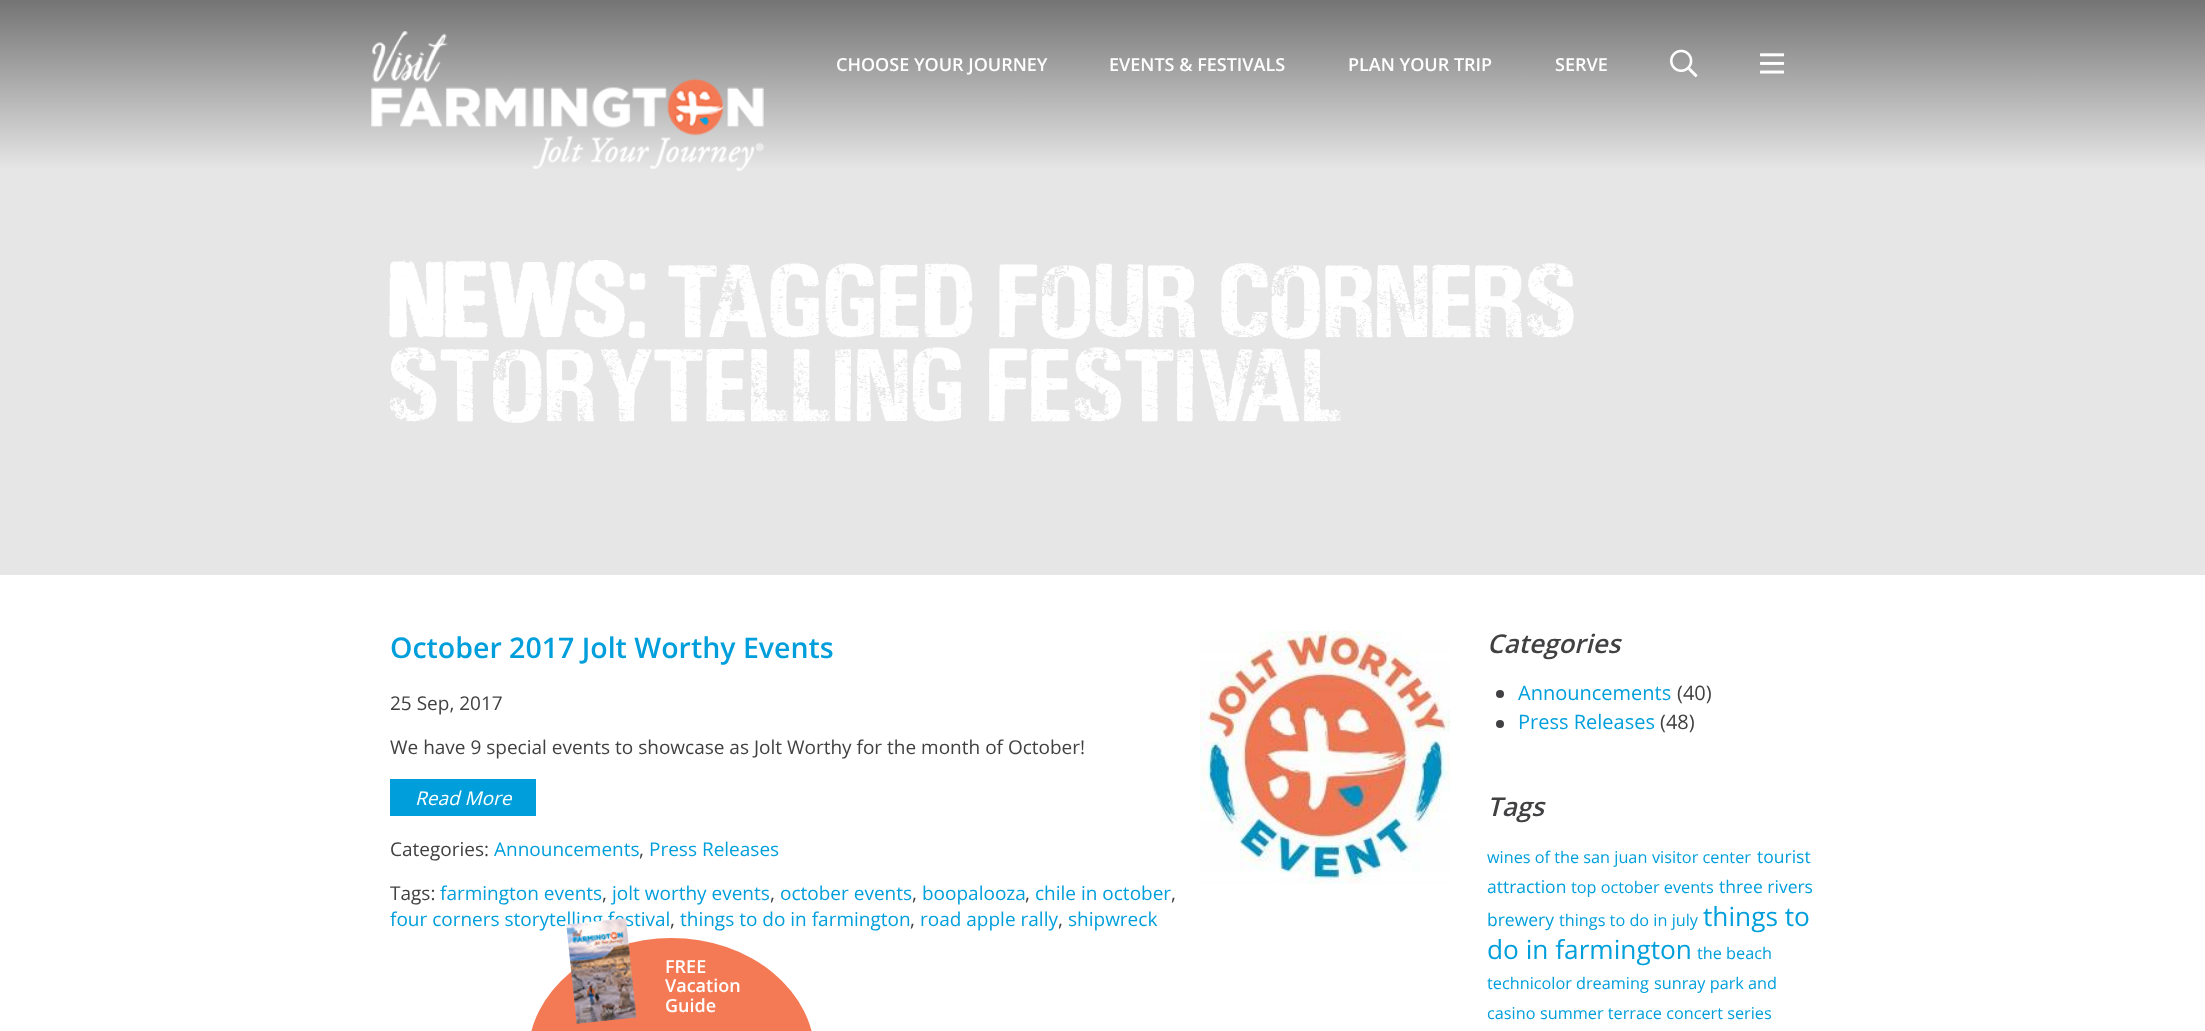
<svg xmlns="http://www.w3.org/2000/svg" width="2205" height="1031">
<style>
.a{font:600 18px Open Sans;fill:#fff}
.b{font:bold 120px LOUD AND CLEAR;fill:#fff}
.c{font:120px LOUD AND CLEAR;fill:#fff}
.d{font:600 28.5px Open Sans;fill:#009fdb}
.e{font:19px Open Sans;fill:#414042}
.f{font:italic 19px Open Sans;fill:#fff}
.g{font:19px Open Sans;fill:#009fdb}
.h{font:italic 600 26px Open Sans;fill:#414042}
.i{font:20px Open Sans;fill:#009fdb}
.j{font:20px Open Sans;fill:#414042}
.k{font:16.25px Open Sans;fill:#009fdb}
.l{font:17.5px Open Sans;fill:#009fdb}
.m{font:26.25px Open Sans;fill:#009fdb}
</style>
<defs>
<linearGradient id="g1" gradientUnits="userSpaceOnUse" x1="1103" y1="0" x2="1103" y2="171"><stop offset="0" stop-color="#747474"/><stop offset="1" stop-color="#e7e7e7"/></linearGradient>
</defs>
<rect width="100%" height="100%" fill="#fff"/>
<path fill="url(#g1)" d="M0 0h2205v171H0z"/>
<path fill="#e6e6e6" d="M0 171h2205v404H0z"/>
<image href="1.png" x="371" y="31" width="393" height="141"/>
<image href="2.png" x="1670" y="49" width="28" height="29"/>
<image href="3.png" x="1760" y="53" width="25" height="21"/>
<image href="4.png" x="1200" y="631" width="250" height="253"/>
<path fill="#009fdb" d="M390 779h146v37H390z"/>
<circle fill="#414042" cx="1500" cy="694" r="4"/>
<circle fill="#414042" cx="1500" cy="724" r="4"/>
<rect fill="#f47a55" x="528" y="938" width="287" height="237" rx="143.5"/>
<text class="a" x="836" y="71">CHOOSE YOUR JOURNEY</text>
<text class="a" x="1109" y="71">EVENTS &amp; FESTIVALS</text>
<text class="a" x="1348" y="71">PLAN YOUR TRIP</text>
<text class="a" x="1555" y="71">SERVE</text>
<text class="b" x="390" y="337">News:</text>
<text class="c" x="669" y="337">Tagged Four Corners</text>
<text class="c" x="390" y="421">Storytelling Festival</text>
<text class="d" x="390" y="658">October 2017 Jolt Worthy Events</text>
<text class="e" x="390" y="710">25 Sep, 2017</text>
<text class="e" x="390" y="754">We have 9 special events to showcase as Jolt Worthy for the month of October!</text>
<text class="f" x="415" y="805">Read More</text>
<text class="e" x="390" y="856">Categories:</text>
<text class="g" x="494" y="856">Announcements</text>
<text class="e" x="639" y="856">,</text>
<text class="g" x="649" y="856">Press Releases</text>
<text class="e" x="390" y="900">Tags:</text>
<text class="g" x="440" y="900">farmington events</text>
<text class="e" x="602" y="900">,</text>
<text class="g" x="612" y="900">jolt worthy events</text>
<text class="e" x="770" y="900">,</text>
<text class="g" x="780" y="900">october events</text>
<text class="e" x="912" y="900">,</text>
<text class="g" x="922" y="900">boopalooza</text>
<text class="e" x="1025" y="900">,</text>
<text class="g" x="1035" y="900">chile in october</text>
<text class="e" x="1171" y="900">,</text>
<text class="g" x="390" y="926">four corners storytelling festival</text>
<text class="e" x="670" y="926">,</text>
<text class="g" x="680" y="926">things to do in farmington</text>
<text class="e" x="910" y="926">,</text>
<text class="g" x="920" y="926">road apple rally</text>
<text class="e" x="1058" y="926">,</text>
<text class="g" x="1068" y="926">shipwreck</text>
<text class="h" x="1487" y="653">Categories</text>
<text class="i" x="1518" y="700">Announcements</text>
<text class="j" x="1677" y="700">(40)</text>
<text class="i" x="1518" y="729">Press Releases</text>
<text class="j" x="1660" y="729">(48)</text>
<text class="h" x="1487" y="816">Tags</text>
<text class="k" x="1487" y="863">wines of the san juan</text>
<text class="k" x="1652" y="863">visitor center</text>
<text class="l" x="1757" y="863">tourist</text>
<text class="l" x="1487" y="893">attraction</text>
<text class="k" x="1571" y="893">top october events</text>
<text class="l" x="1719" y="893">three rivers</text>
<text class="l" x="1487" y="926">brewery</text>
<text class="k" x="1559" y="926">things to do in july</text>
<text class="m" x="1703" y="926">things to</text>
<text class="m" x="1487" y="959">do in farmington</text>
<text class="k" x="1697" y="959">the beach</text>
<text class="k" x="1487" y="989">technicolor dreaming</text>
<text class="k" x="1654" y="989">sunray park and</text>
<text class="k" x="1487" y="1019">casino</text>
<text class="k" x="1540" y="1019">summer terrace concert series</text>
<image href="5.png" x="566" y="918" width="71" height="106"/>
<text class="a" x="665" y="973">FREE</text>
<text class="a" x="665" y="992">Vacation</text>
<text class="a" x="665" y="1012">Guide</text>
</svg>
